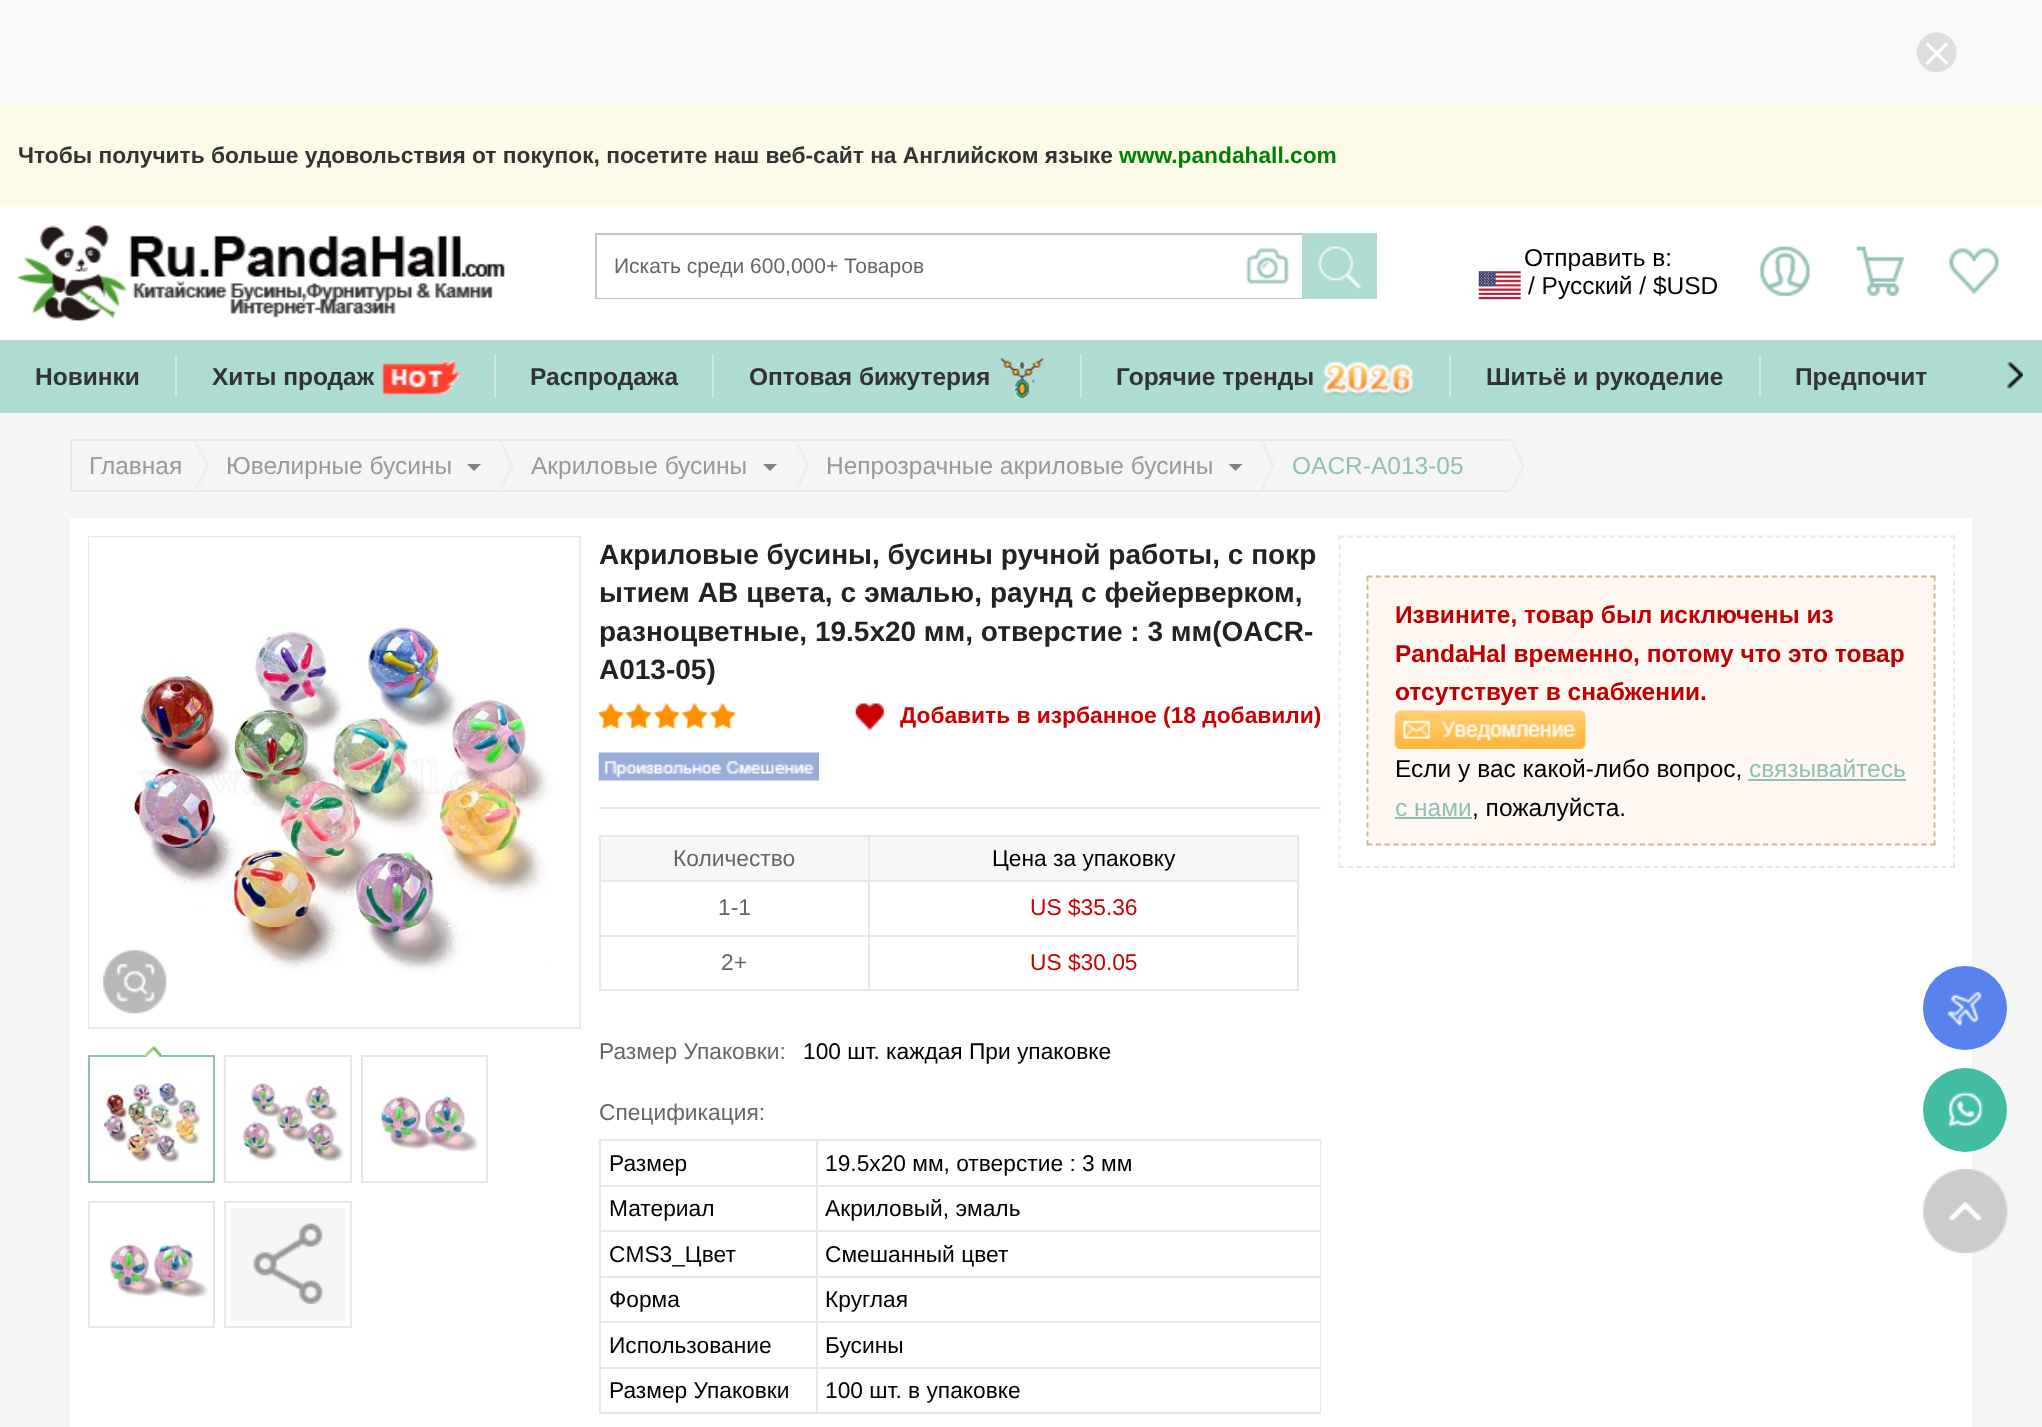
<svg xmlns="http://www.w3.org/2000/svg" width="2042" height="1427">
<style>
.a{font:bold 22.75px Liberation Sans;fill:#333}
.b{font:bold 22.75px Liberation Sans;fill:#008000}
.c{font:21px Liberation Sans;fill:#666}
.d{font:24.5px Liberation Sans;fill:#000}
.e{font:bold 24.5px Liberation Sans;fill:#333}
.f{font:24.5px Liberation Sans;fill:#999}
.g{font:24.5px Liberation Sans;fill:#90bfb6}
.h{font:bold 28px Liberation Sans;fill:#222}
.i{font:bold 22.75px Liberation Sans;fill:#c00}
.j{font:22.75px Liberation Sans;fill:#666}
.k{font:22.75px Liberation Sans;fill:#000}
.l{font:22.75px Liberation Sans;fill:#c00}
.m{font:bold 24.5px Liberation Sans;fill:#be0100}
</style>
<rect width="100%" height="100%" fill="#f8f8f8"/>
<image href="1.png" x="1916" y="32" width="41" height="40"/>
<path fill="#fbfbe7" d="M0 105h2042v102H0z"/>
<path fill="#fff" d="M0 207h2042v133H0z"/>
<image href="2.png" x="17" y="225" width="488" height="96"/>
<path fill="#c3c3c3" d="M595 233h707v2H595z"/>
<path fill="#c3c3c3" d="M595 298h707v1H595z"/>
<path fill="#c3c3c3" d="M595 233h2v66H595z"/>
<image href="3.png" x="1245" y="248" width="44" height="36"/>
<path fill="#aedbd2" d="M1302 233h75v66H1302z"/>
<image href="4.png" x="1317" y="246" width="45" height="43"/>
<image href="5.png" x="1478" y="271" width="43" height="29"/>
<image href="6.png" x="1760" y="246" width="50" height="50"/>
<image href="7.png" x="1856" y="246" width="48" height="50"/>
<image href="8.png" x="1949" y="248" width="50" height="46"/>
<path fill="#aedbd2" d="M0 340h2042v73H0z"/>
<path fill="#cee9e4" d="M175 355h2v42H175z"/>
<path fill="#cee9e4" d="M494 355h2v42H494z"/>
<image href="9.png" x="382" y="360" width="77" height="35"/>
<path fill="#cee9e4" d="M712 355h2v42H712z"/>
<path fill="#cee9e4" d="M1080 355h2v42H1080z"/>
<image href="10.png" x="1000" y="358" width="44" height="40"/>
<path fill="#cee9e4" d="M1449 355h2v42H1449z"/>
<image href="11.png" x="1322" y="362" width="92" height="34"/>
<path fill="#cee9e4" d="M1759 355h2v42H1759z"/>
<image href="12.png" x="2007" y="362" width="16" height="27"/>
<path fill="#f5f5f5" d="M0 413h2042v1014H0z"/>
<image href="13.png" x="194" y="441" width="14" height="49"/>
<path fill="#e8e8e8" d="M70 439h1440v2H70z"/>
<path fill="#e8e8e8" d="M70 490h1440v2H70z"/>
<path fill="#e8e8e8" d="M70 439h2v53H70z"/>
<image href="14.png" x="499" y="441" width="14" height="49"/>
<path fill="#808080" d="M467 464h14l-7 7z"/>
<image href="15.png" x="795" y="441" width="14" height="49"/>
<path fill="#808080" d="M763 464h14l-7 7z"/>
<image href="16.png" x="1260" y="441" width="14" height="49"/>
<path fill="#808080" d="M1228.5 464h14l-7 7z"/>
<image href="17.png" x="1510" y="441" width="14" height="49"/>
<path fill="#fff" d="M70 518h1902v909H70z"/>
<path fill="none" stroke="#e8e8e8" stroke-width="2" d="M89 537h491v491H89z"/>
<image href="18.png" x="89" y="537" width="491" height="491"/>
<image href="19.png" x="103" y="950" width="64" height="64"/>
<path fill="none" stroke="#90bfb6" stroke-width="2" d="M89 1056h125v126H89z"/>
<image href="20.png" x="143" y="1046" width="18" height="11"/>
<image href="21.png" x="95" y="1074" width="113" height="89"/>
<path fill="none" stroke="#e8e8e8" stroke-width="2" d="M225 1056h126v126H225z"/>
<image href="22.png" x="231" y="1083" width="113" height="79"/>
<path fill="none" stroke="#e8e8e8" stroke-width="2" d="M362 1056h125v126H362z"/>
<image href="23.png" x="380" y="1095" width="100" height="57"/>
<path fill="none" stroke="#e8e8e8" stroke-width="2" d="M89 1202h125v125H89z"/>
<image href="24.png" x="109" y="1243" width="99" height="55"/>
<path fill="none" stroke="#e8e8e8" stroke-width="2" d="M225 1202h126v125H225z"/>
<path fill="#f5f5f5" d="M231 1208h114v113H231z"/>
<image href="25.png" x="253" y="1223" width="70" height="81"/>
<image href="26.png" x="598" y="703" width="141" height="25"/>
<image href="27.png" x="598" y="703" width="141" height="25"/>
<image href="28.png" x="855" y="703" width="29" height="27"/>
<path fill="#e8e8e8" d="M599 807h722v2H599z"/>
<image href="29.png" x="598" y="752" width="221" height="29"/>
<path fill="#f7f7f7" d="M601 837h267v43H601z"/>
<path fill="#e8e8e8" d="M868 835h431v2H868z"/>
<path fill="#e8e8e8" d="M868 880h431v2H868z"/>
<path fill="#e8e8e8" d="M868 935h431v2H868z"/>
<path fill="#e8e8e8" d="M1297 935h2v56H1297z"/>
<path fill="#e8e8e8" d="M868 989h431v2H868z"/>
<path fill="#e8e8e8" d="M868 935h2v56H868z"/>
<path fill="#e8e8e8" d="M599 935h271v2H599z"/>
<path fill="#e8e8e8" d="M868 880h2v56H868z"/>
<path fill="#e8e8e8" d="M599 880h271v2H599z"/>
<path fill="#e8e8e8" d="M868 835h2v47H868z"/>
<path fill="#e8e8e8" d="M599 835h271v2H599z"/>
<path fill="#e8e8e8" d="M599 989h271v2H599z"/>
<path fill="#e8e8e8" d="M599 935h2v56H599z"/>
<path fill="#e8e8e8" d="M599 880h2v56H599z"/>
<path fill="#e8e8e8" d="M599 835h2v47H599z"/>
<path fill="#f7f7f7" d="M870 837h427v43H870z"/>
<path fill="#e8e8e8" d="M1297 880h2v56H1297z"/>
<path fill="#e8e8e8" d="M1297 835h2v47H1297z"/>
<path fill="#e8e8e8" d="M816 1139h505v2H816z"/>
<path fill="#e8e8e8" d="M816 1185h505v2H816z"/>
<path fill="#e8e8e8" d="M816 1230h505v2H816z"/>
<path fill="#e8e8e8" d="M816 1276h505v2H816z"/>
<path fill="#e8e8e8" d="M816 1321h505v2H816z"/>
<path fill="#e8e8e8" d="M816 1367h505v2H816z"/>
<path fill="#e8e8e8" d="M1320 1367h1v47H1320z"/>
<path fill="#e8e8e8" d="M816 1412h505v2H816z"/>
<path fill="#e8e8e8" d="M816 1367h2v47H816z"/>
<path fill="#e8e8e8" d="M599 1367h218v2H599z"/>
<path fill="#e8e8e8" d="M816 1321h2v48H816z"/>
<path fill="#e8e8e8" d="M599 1321h218v2H599z"/>
<path fill="#e8e8e8" d="M816 1276h2v47H816z"/>
<path fill="#e8e8e8" d="M599 1276h218v2H599z"/>
<path fill="#e8e8e8" d="M816 1230h2v48H816z"/>
<path fill="#e8e8e8" d="M599 1230h218v2H599z"/>
<path fill="#e8e8e8" d="M816 1185h2v47H816z"/>
<path fill="#e8e8e8" d="M599 1185h218v2H599z"/>
<path fill="#e8e8e8" d="M816 1139h2v48H816z"/>
<path fill="#e8e8e8" d="M599 1139h218v2H599z"/>
<path fill="#e8e8e8" d="M599 1412h218v2H599z"/>
<path fill="#e8e8e8" d="M599 1367h2v47H599z"/>
<path fill="#e8e8e8" d="M599 1321h2v48H599z"/>
<path fill="#e8e8e8" d="M599 1276h2v47H599z"/>
<path fill="#e8e8e8" d="M599 1230h2v48H599z"/>
<path fill="#e8e8e8" d="M599 1185h2v47H599z"/>
<path fill="#e8e8e8" d="M599 1139h2v48H599z"/>
<path fill="#e8e8e8" d="M1320 1321h1v48H1320z"/>
<path fill="#e8e8e8" d="M1320 1276h1v47H1320z"/>
<path fill="#e8e8e8" d="M1320 1230h1v48H1320z"/>
<path fill="#e8e8e8" d="M1320 1185h1v47H1320z"/>
<path fill="#e8e8e8" d="M1320 1139h1v48H1320z"/>
<path fill="none" stroke="#e8e8e8" stroke-width="1.8" stroke-dasharray="5.25 3.48" d="M1339 536.5h616"/>
<path fill="none" stroke="#e8e8e8" stroke-width="1.8" stroke-dasharray="5.25 3.59" d="M1954 535.5v332.5"/>
<path fill="none" stroke="#e8e8e8" stroke-width="1.8" stroke-dasharray="5.25 3.48" d="M1339 867h616"/>
<path fill="none" stroke="#e8e8e8" stroke-width="1.8" stroke-dasharray="5.25 3.59" d="M1339.5 535.5v332.5"/>
<path fill="#fff8f2" d="M1367 576h569v269H1367z"/>
<path fill="none" stroke="#ceb692" stroke-width="1.8" stroke-dasharray="5.25 3.55" d="M1367 576.5h568.5"/>
<path fill="none" stroke="#ceb692" stroke-width="1.8" stroke-dasharray="5.25 3.55" d="M1934.5 576v269"/>
<path fill="none" stroke="#ceb692" stroke-width="1.8" stroke-dasharray="5.25 3.55" d="M1367 844.5h568.5"/>
<path fill="none" stroke="#ceb692" stroke-width="1.8" stroke-dasharray="5.25 3.55" d="M1367.5 576v269"/>
<image href="30.png" x="1394" y="710" width="192" height="39"/>
<path fill="#90bfb6" d="M1748 779h158v2H1748z"/>
<path fill="#90bfb6" d="M1395 817h77v2H1395z"/>
<circle fill="#5882ee" cx="1965" cy="1008" r="42"/>
<image href="31.png" x="1947" y="991" width="35" height="35"/>
<circle fill="#43bca4" cx="1965" cy="1110" r="42"/>
<image href="32.png" x="1947" y="1091" width="37" height="37"/>
<image href="33.png" x="1923" y="1169" width="85" height="84"/>
<text class="a" x="18" y="163">Чтобы получить больше удовольствия от покупок, посетите наш веб-сайт на Английском языке</text>
<text class="b" x="1119" y="163">www.pandahall.com</text>
<text class="c" x="614" y="273">Искать среди 600,000+ Товаров</text>
<text class="d" x="1524" y="266">Отправить в:</text>
<text class="d" x="1528" y="294">/ Pусский / $USD</text>
<text class="e" x="35" y="385">Новинки</text>
<text class="e" x="212" y="385">Хиты продаж</text>
<text class="e" x="530" y="385">Распродажа</text>
<text class="e" x="749" y="385">Оптовая бижутерия</text>
<text class="e" x="1116" y="385">Горячие тренды</text>
<text class="e" x="1486" y="385">Шитьё и рукоделие</text>
<text class="e" x="1795" y="385">Предпочит</text>
<text class="f" x="89" y="474">Главная</text>
<text class="f" x="226" y="474">Ювелирные бусины</text>
<text class="f" x="531" y="474">Акриловые бусины</text>
<text class="f" x="826" y="474">Непрозрачные акриловые бусины</text>
<text class="g" x="1292" y="474">OACR-A013-05</text>
<text class="h" x="599" y="564">Акриловые бусины, бусины ручной работы, с покр</text>
<text class="h" x="599" y="602" word-spacing="0.25">ытием AB цвета, с эмалью, раунд с фейерверком,</text>
<text class="h" x="599" y="641">разноцветные, 19.5x20 мм, отверстие : 3 мм(OACR-</text>
<text class="h" x="599" y="679">A013-05)</text>
<text class="i" x="900" y="723">Добавить в изрбанное (18 добавили)</text>
<text class="j" x="673" y="866">Количество</text>
<text class="k" x="992" y="866">Цена за упаковку</text>
<text class="j" x="718" y="915">1-1</text>
<text class="l" x="1030" y="915">US $35.36</text>
<text class="j" x="721" y="970">2+</text>
<text class="l" x="1030" y="970">US $30.05</text>
<text class="j" x="599" y="1059">Размер Упаковки:</text>
<text class="k" x="803" y="1059">100 шт. каждая При упаковке</text>
<text class="j" x="599" y="1120">Спецификация:</text>
<text class="k" x="609" y="1171">Размер</text>
<text class="k" x="825" y="1171">19.5x20 мм, отверстие : 3 мм</text>
<text class="k" x="609" y="1216">Материал</text>
<text class="k" x="825" y="1216">Акриловый, эмаль</text>
<text class="k" x="609" y="1262">CMS3_Цвет</text>
<text class="k" x="825" y="1262">Смешанный цвет</text>
<text class="k" x="609" y="1307">Форма</text>
<text class="k" x="825" y="1307">Круглая</text>
<text class="k" x="609" y="1353">Использование</text>
<text class="k" x="825" y="1353">Бусины</text>
<text class="k" x="609" y="1398">Размер Упаковки</text>
<text class="k" x="825" y="1398">100 шт. в упаковке</text>
<text class="m" x="1395" y="623">Извините, товар был исключены из</text>
<text class="m" x="1395" y="662">PandaHal временно, потому что это товар</text>
<text class="m" x="1395" y="700">отсутствует в снабжении.</text>
<text class="d" x="1395" y="777">Если у вас какой-либо вопрос,</text>
<text class="g" x="1749" y="777">связывайтесь</text>
<text class="g" x="1395" y="816">с нами</text>
<text class="d" x="1472" y="816">, пожалуйста.</text>
</svg>
